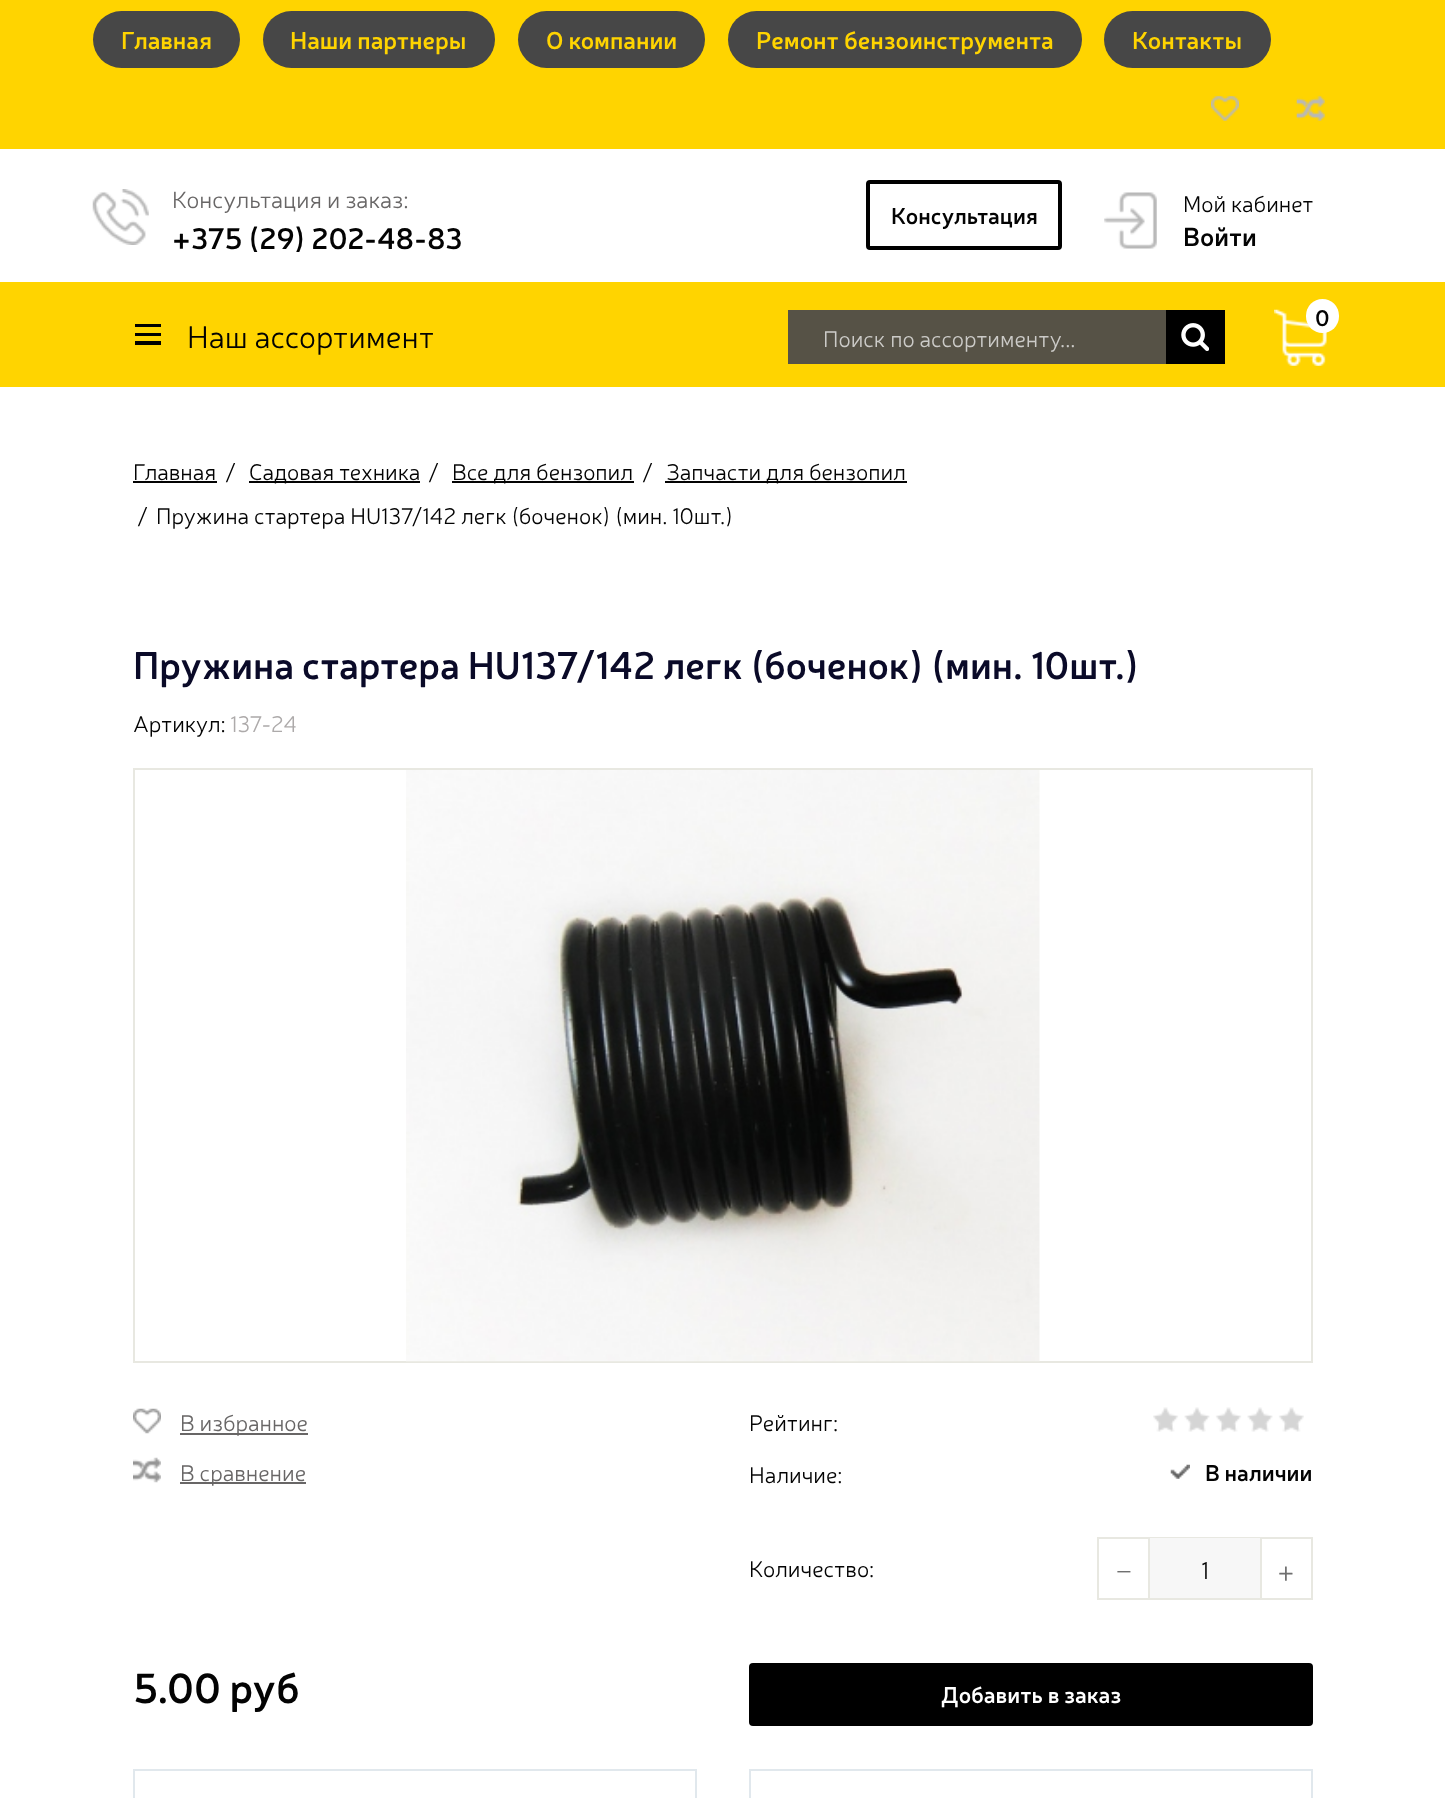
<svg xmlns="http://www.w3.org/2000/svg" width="1445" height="1798">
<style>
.a{font:600 24.5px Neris;fill:#ffd400}
.b{font:300 23.75px Neris;fill:#686666}
.c{font:600 29.75px Neris;fill:#030303}
.d{font:600 22.75px Neris;fill:#030303}
.e{font:300 22.75px Neris;fill:#030303}
.f{font:600 26px Neris;fill:#030303}
.g{font:300 31.5px Neris;fill:#030303}
.h{font:300 22.75px Neris;fill:#cccbc8}
.i{font:600 38.5px Neris;fill:#0a0a28}
.j{font:300 22.75px Neris;fill:#adaaaa}
.k{font:300 22.75px Neris;fill:#686666}
.l{font:28px Liberation Serif;fill:#707070}
.m{font:300 24.5px Neris;fill:#030303}
.n{font:300 28px Neris;fill:#707070}
.o{font:600 42px Neris;fill:#030303}
.p{font:600 22.75px Neris;fill:#fff}
</style>
<rect width="100%" height="100%" fill="#fff"/>
<path fill="#ffd400" d="M0 0h1445v149H0z"/>
<rect fill="#474747" x="93" y="11" width="147" height="57" rx="28.5"/>
<rect fill="#474747" x="263" y="11" width="232" height="57" rx="28.5"/>
<rect fill="#474747" x="518" y="11" width="187" height="57" rx="28.5"/>
<rect fill="#474747" x="728" y="11" width="354" height="57" rx="28.5"/>
<rect fill="#474747" x="1104" y="11" width="167" height="57" rx="28.5"/>
<image href="1.png" x="1211" y="96" width="28" height="25"/>
<image href="2.png" x="1296" y="96" width="29" height="25"/>
<image href="3.png" x="92" y="189" width="57" height="56"/>
<rect fill="none" stroke="#000" stroke-width="4" x="868" y="182" width="192" height="66" rx="2"/>
<image href="4.png" x="1104" y="192" width="53" height="57"/>
<path fill="#ffd400" d="M0 282h1445v105H0z"/>
<image href="5.png" x="1274" y="309" width="53" height="57"/>
<rect fill="#fff" x="1306" y="299" width="33" height="34" rx="16.5"/>
<path fill="#000" d="M135 324h26v3H135z"/>
<path fill="#000" d="M135 333h26v3H135z"/>
<path fill="#000" d="M135 341h26v4H135z"/>
<path fill="#565246" d="M788 310h378v54H788z"/>
<path fill="#000" d="M1166 310h59v54H1166z"/>
<image href="6.png" x="1181" y="323" width="28" height="28"/>
<path fill="#030303" d="M133 481h84v2H133z"/>
<path fill="#030303" d="M249 481h171v2H249z"/>
<path fill="#030303" d="M452 481h182v2H452z"/>
<path fill="#030303" d="M665 481h242v2H665z"/>
<path fill="none" stroke="#e8e8e1" stroke-width="2" d="M134 769h1178v593H134z"/>
<image href="7.png" x="406" y="770" width="634" height="592"/>
<image href="8.png" x="133" y="1408" width="28" height="26"/>
<path fill="#686666" d="M180 1433h128v2H180z"/>
<image href="9.png" x="133" y="1457" width="28" height="26"/>
<path fill="#686666" d="M180 1482h126v2H180z"/>
<image href="10.png" x="1153" y="1407" width="151" height="25"/>
<image href="11.png" x="1170" y="1464" width="20" height="15"/>
<path fill="none" stroke="#e8e8e1" stroke-width="2" d="M1098 1538h214v61H1098z"/>
<path fill="#f7f7f7" d="M1150 1538h110v60H1150z"/>
<path fill="#e8e8e1" d="M1260 1538h2v60H1260z"/>
<path fill="#e8e8e1" d="M1148 1538h2v60H1148z"/>
<rect fill="#000" x="749" y="1663" width="564" height="63" rx="4"/>
<path fill="none" stroke="#e1e8ed" stroke-width="2" d="M134 1770h562v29H134z"/>
<path fill="none" stroke="#e1e8ed" stroke-width="2" d="M750 1770h562v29H750z"/>
<text class="a" x="121" y="49">Главная</text>
<text class="a" x="290" y="49">Наши партнеры</text>
<text class="a" x="546" y="49">О компании</text>
<text class="a" x="756" y="49">Ремонт бензоинструмента</text>
<text class="a" x="1132" y="49">Контакты</text>
<text class="b" x="172" y="208">Консультация и заказ:</text>
<text class="c" x="172" y="249">+375 (29) 202-48-83</text>
<text class="d" x="891" y="224">Консультация</text>
<text class="e" x="1183" y="212">Мой кабинет</text>
<text class="f" x="1183" y="246">Войти</text>
<text class="d" x="1315" y="326">0</text>
<text class="g" x="187" y="348">Наш ассортимент</text>
<text class="h" x="823" y="347">Поиск по ассортименту...</text>
<text class="e" x="133" y="480">Главная</text>
<text class="e" x="225" y="480">/</text>
<text class="e" x="249" y="480">Садовая техника</text>
<text class="e" x="428" y="480">/</text>
<text class="e" x="452" y="480">Все для бензопил</text>
<text class="e" x="642" y="480">/</text>
<text class="e" x="666" y="480">Запчасти для бензопил</text>
<text class="e" x="137" y="524">/</text>
<text class="e" x="156" y="524">Пружина стартера HU137/142 легк (боченок) (мин. 10шт.)</text>
<text class="i" x="133" y="679">Пружина стартера HU137/142 легк (боченок) (мин. 10шт.)</text>
<text class="e" x="133" y="732">Артикул:</text>
<text class="j" x="230" y="732">137-24</text>
<text class="k" x="180" y="1431">В избранное</text>
<text class="k" x="180" y="1481">В сравнение</text>
<text class="e" x="749" y="1431">Рейтинг:</text>
<text class="e" x="749" y="1483">Наличие:</text>
<text class="d" x="1205" y="1481">В наличии</text>
<text class="e" x="749" y="1577">Количество:</text>
<text class="l" x="1116" y="1581">−</text>
<text class="m" x="1201" y="1579">1</text>
<text class="n" x="1277" y="1581">+</text>
<text class="o" x="133" y="1703">5.00 руб</text>
<text class="p" x="941" y="1703">Добавить в заказ</text>
</svg>
